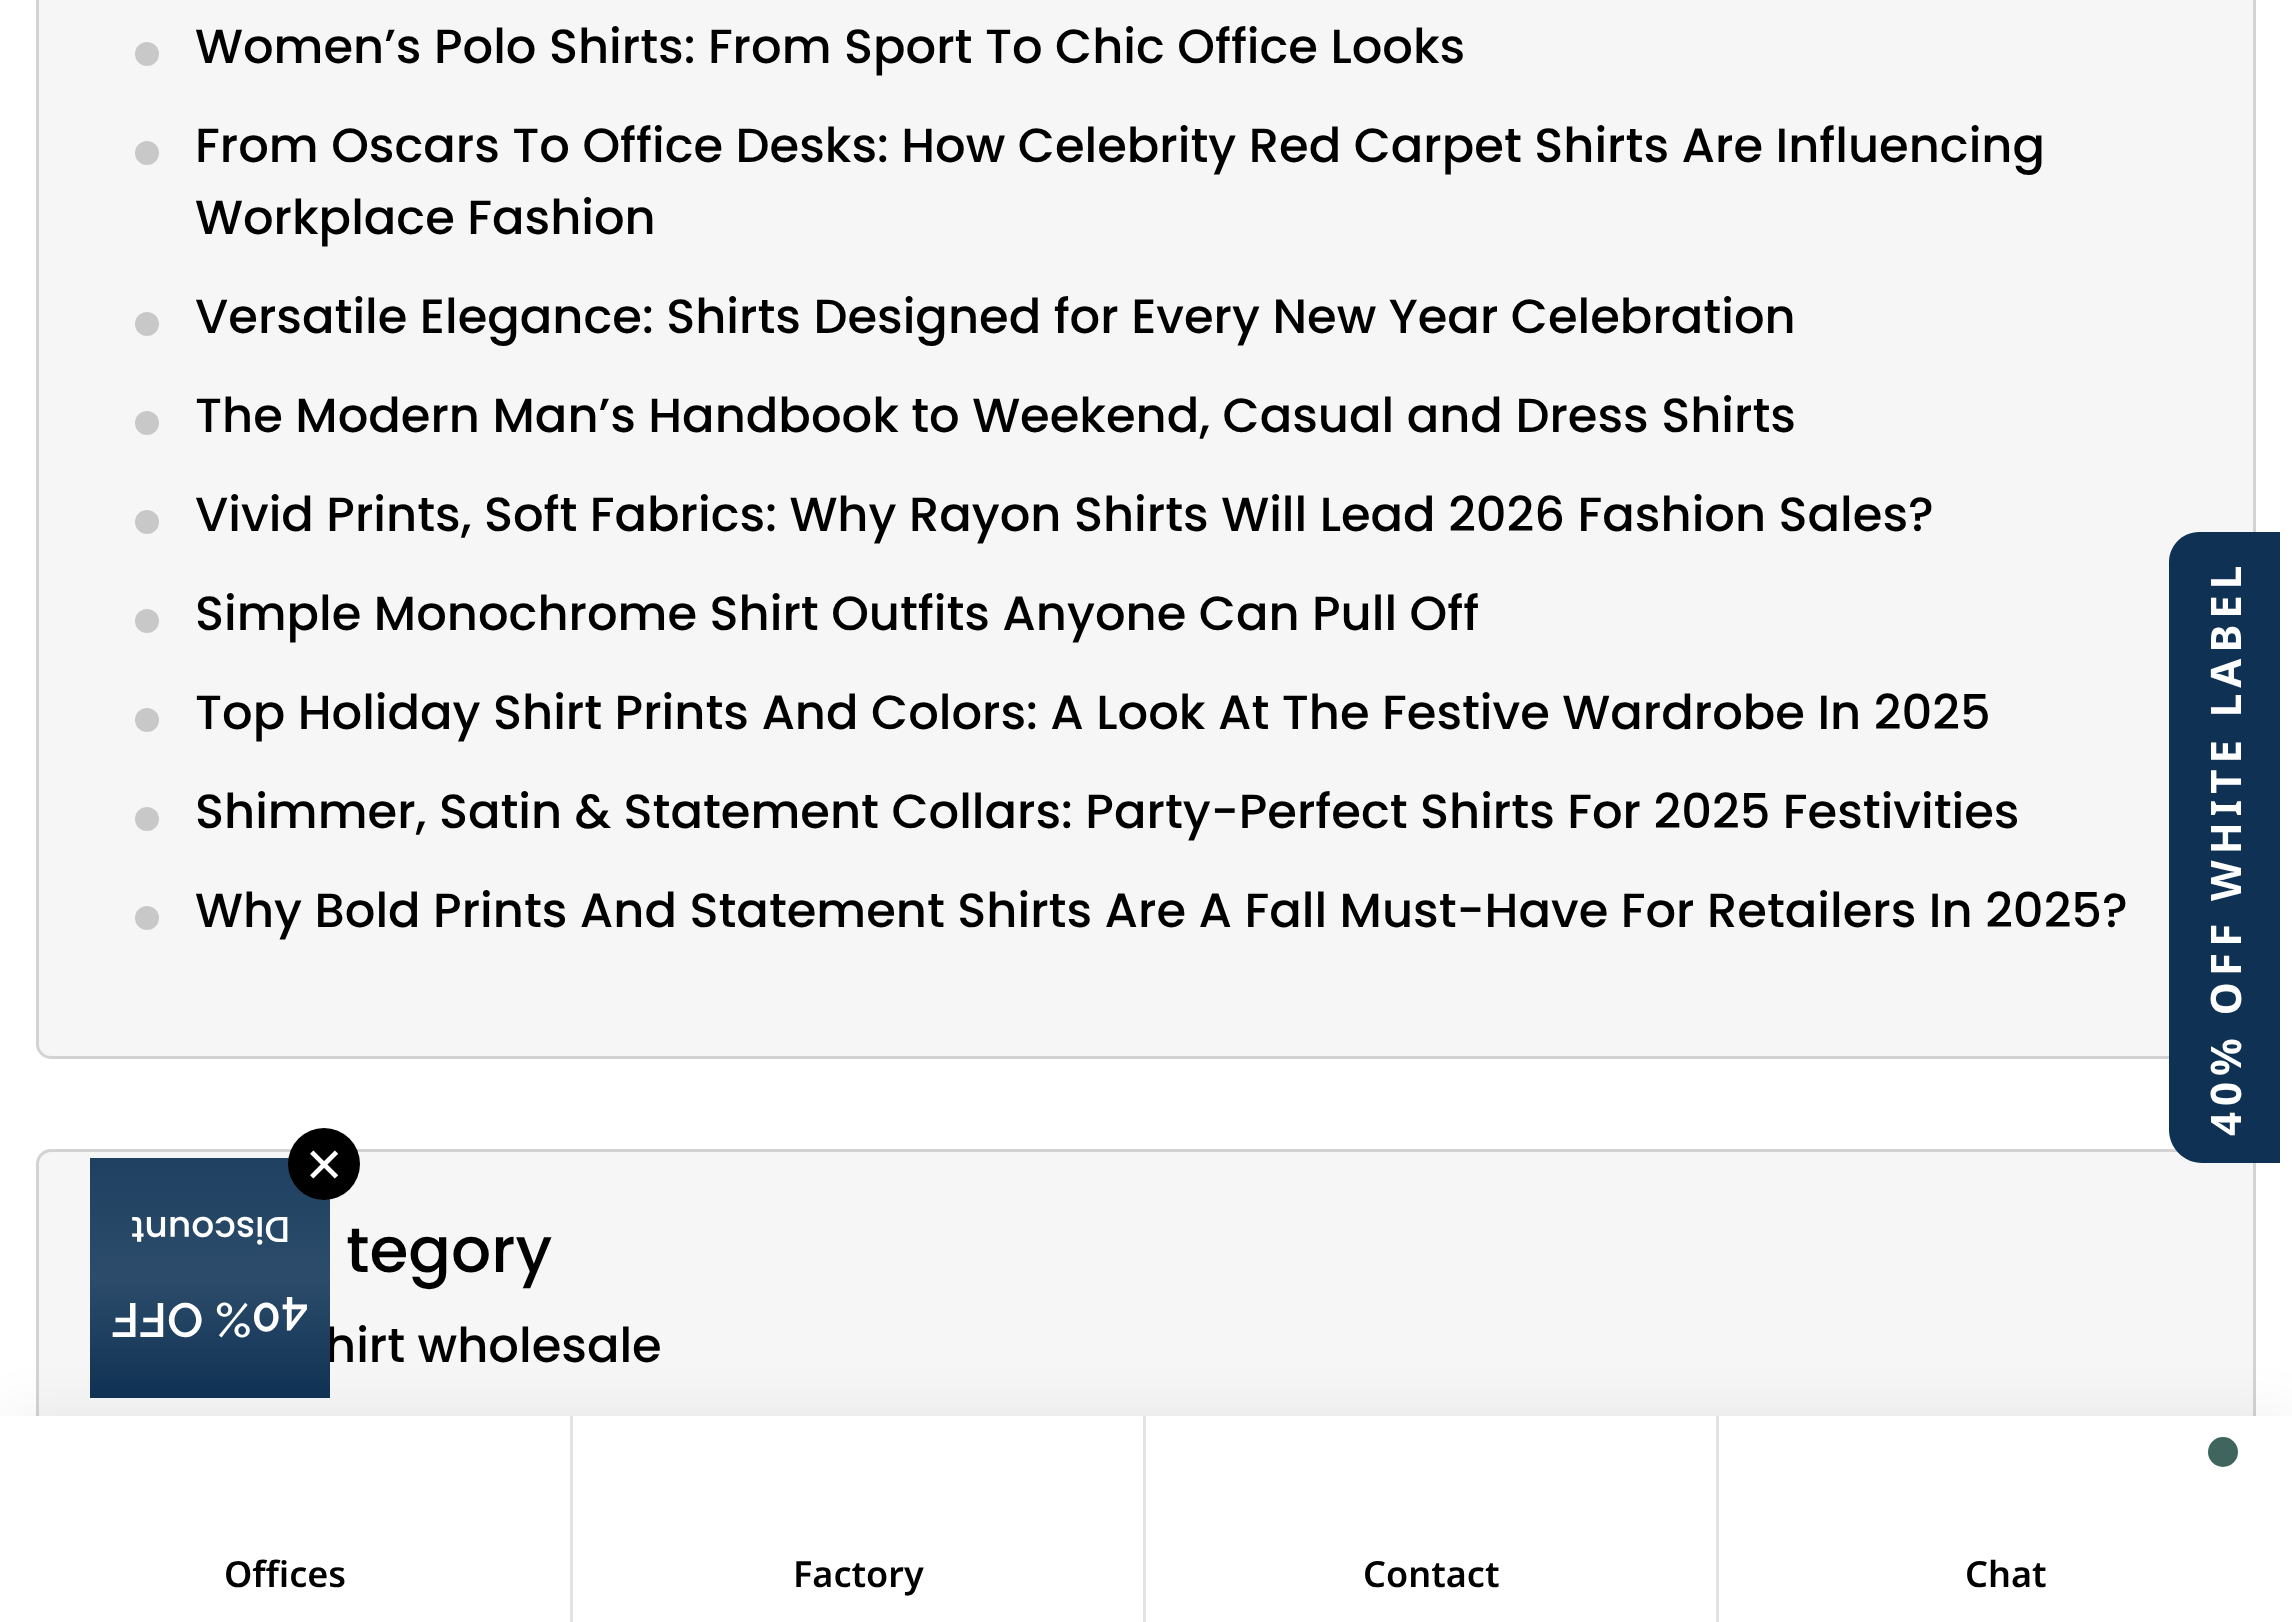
<svg xmlns="http://www.w3.org/2000/svg" width="2292" height="1622">
<style>
.a{font:500 48px Poppins;fill:#000}
.b{font:500 63px Poppins;fill:#000}
.c{font:bold 42px Noto Sans;letter-spacing:6px;fill:#fff}
.d{font:48px DejaVu Sans;fill:#fff}
.e{font:500 36px Poppins;fill:#fff}
.f{font:600 48px Raleway;fill:#fff}
.g{font:600 36px Noto Sans;fill:#000}
</style>
<defs>
<linearGradient id="g1" gradientUnits="userSpaceOnUse" x1="210" y1="1158" x2="210" y2="1398"><stop offset="0" stop-color="#1f4061"/><stop offset="0.5" stop-color="#2d4c6b"/><stop offset="1" stop-color="#0f3153"/></linearGradient>
</defs>
<rect width="100%" height="100%" fill="#fff"/>
<rect fill="#f6f6f6" x="36" y="-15" width="2220" height="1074" rx="15"/>
<rect fill="none" stroke="#4e4e4e36" stroke-width="3" x="37.5" y="-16.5" width="2217" height="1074" rx="13.5"/>
<circle fill="#c8c8c8" cx="147" cy="54" r="12"/>
<circle fill="#c8c8c8" cx="147" cy="153" r="12"/>
<circle fill="#c8c8c8" cx="147" cy="324" r="12"/>
<circle fill="#c8c8c8" cx="147" cy="423" r="12"/>
<circle fill="#c8c8c8" cx="147" cy="522" r="12"/>
<circle fill="#c8c8c8" cx="147" cy="621" r="12"/>
<circle fill="#c8c8c8" cx="147" cy="720" r="12"/>
<circle fill="#c8c8c8" cx="147" cy="819" r="12"/>
<circle fill="#c8c8c8" cx="147" cy="918" r="12"/>
<rect fill="#f6f6f6" x="36" y="1149" width="2220" height="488" rx="15"/>
<rect fill="none" stroke="#4e4e4e36" stroke-width="3" x="37.5" y="1150.5" width="2217" height="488" rx="13.5"/>
<path fill="#0f3153" d="M2169 1130v-568c0-16 13-30 30-30h81v631h-78c-18 0-33-15-33-33z"/>
<path fill="#00000012" filter="blur(30px)" d="M3 1419h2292v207H3z"/>
<path fill="#fff" d="M0 1416h2292v206H0z"/>
<path fill="#e3e3e3" d="M570 1416h3v206H570z"/>
<path fill="#e3e3e3" d="M1143 1416h3v206H1143z"/>
<path fill="#e3e3e3" d="M1716 1416h3v206H1716z"/>
<circle fill="#40655e" cx="2223" cy="1452" r="15"/>
<text class="a" x="195" y="63">Women’s Polo Shirts: From Sport To Chic Office Looks</text>
<text class="a" x="195" y="162">From Oscars To Office Desks: How Celebrity Red Carpet Shirts Are Influencing</text>
<text class="a" x="195" y="234">Workplace Fashion</text>
<text class="a" x="195" y="333">Versatile Elegance: Shirts Designed for Every New Year Celebration</text>
<text class="a" x="195" y="432">The Modern Man’s Handbook to Weekend, Casual and Dress Shirts</text>
<text class="a" x="195" y="531">Vivid Prints, Soft Fabrics: Why Rayon Shirts Will Lead 2026 Fashion Sales?</text>
<text class="a" x="195" y="630">Simple Monochrome Shirt Outfits Anyone Can Pull Off</text>
<text class="a" x="195" y="729">Top Holiday Shirt Prints And Colors: A Look At The Festive Wardrobe In 2025</text>
<text class="a" x="195" y="828">Shimmer, Satin &amp; Statement Collars: Party-Perfect Shirts For 2025 Festivities</text>
<text class="a" x="195" y="927">Why Bold Prints And Statement Shirts Are A Fall Must-Have For Retailers In 2025?</text>
<text class="b" x="346" y="1272">tegory</text>
<text class="a" x="325" y="1362">hirt wholesale</text>
<text class="c" x="2241" y="1136" transform="rotate(-90 2241 1136)">40% OFF WHITE LABEL</text>
<path fill="url(#g1)" d="M90 1158h240v240H90z"/>
<circle fill="#000" cx="324" cy="1164" r="36"/>
<text class="d" x="304" y="1182">✕</text>
<text class="e" x="290" y="1217" transform="rotate(180 290 1217)">Discount</text>
<text class="f" x="308" y="1303" transform="rotate(180 308 1303)">40% OFF</text>
<text class="g" x="224" y="1587">Offices</text>
<text class="g" x="793" y="1587">Factory</text>
<text class="g" x="1363" y="1587">Contact</text>
<text class="g" x="1965" y="1587">Chat</text>
</svg>
